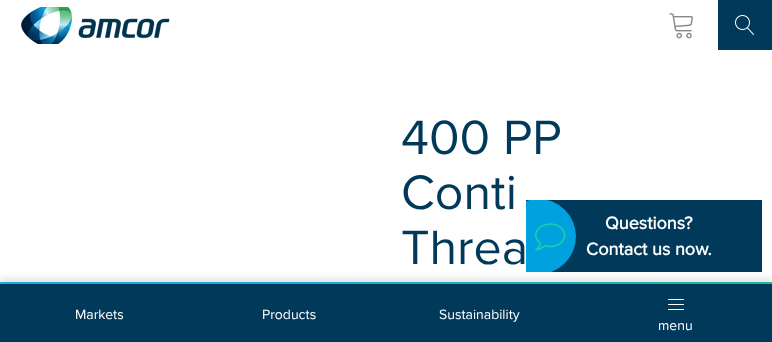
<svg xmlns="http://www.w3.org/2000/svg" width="772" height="342">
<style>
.a{font:50px Proxima Nova;fill:#00395a}
.b{font:bold 18px Proxima Nova;fill:#fff}
.c{font:14px Proxima Nova;fill:#fff}
</style>
<defs>
<linearGradient id="g1" gradientUnits="userSpaceOnUse" x1="655" y1="147" x2="117" y2="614"><stop offset="0" stop-color="#1bcdac"/><stop offset="0.55" stop-color="#24bbee"/><stop offset="1" stop-color="#24bbee"/></linearGradient>
<clipPath id="clip1"><path d="M526 200h236v72H526z"/></clipPath>
</defs>
<rect width="100%" height="100%" fill="#fff"/>
<path fill="#00395a" d="M526 200h236v72H526z"/>
<path fill="url(#g1)" d="M0 282h772v2H0z"/>
<image href="2.png" x="21" y="7" width="149" height="37"/>
<image href="3.png" x="669" y="13" width="24" height="26"/>
<path fill="#00395a" d="M718 0h54v50H718z"/>
<image href="4.png" x="735" y="15" width="19" height="20"/>
<text class="a" x="401" y="154">400 PP</text>
<text class="a" x="401" y="209">Conti</text>
<text class="a" x="401" y="264">Threa</text>
<g clip-path="url(#clip1)">
<circle fill="#00a1de" cx="538.5" cy="236.5" r="37.5"/>
</g>
<image href="1.png" x="535" y="223" width="31" height="28"/>
<text class="b" x="605" y="229">Questions?</text>
<text class="b" x="586" y="255">Contact us now.</text>
<path fill="#0000001a" filter="blur(3px)" d="M0 278h772v59H0z"/>
<path fill="#00395a" d="M0 284h772v58H0z"/>
<text class="c" x="75" y="319">Markets</text>
<text class="c" x="262" y="319">Products</text>
<text class="c" x="439" y="319">Sustainability</text>
<image href="5.png" x="668" y="299" width="16" height="11"/>
<text class="c" x="658" y="330">menu</text>
</svg>
